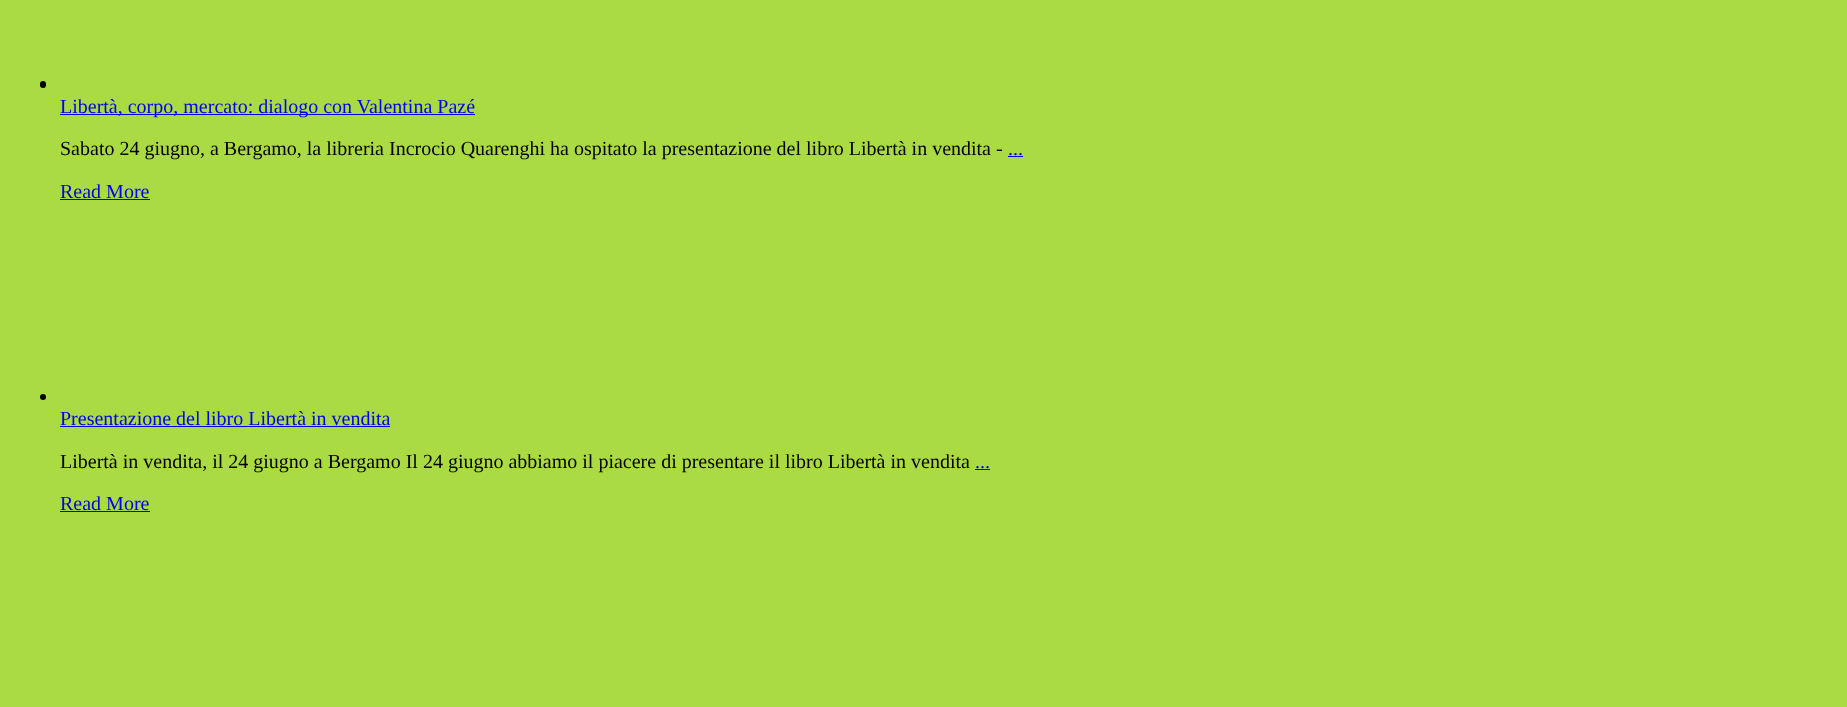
<svg xmlns="http://www.w3.org/2000/svg" width="1847" height="707">
<style>
.a{font:20px Liberation Serif;fill:#00e}
.b{font:20px Liberation Serif;fill:#000}
</style>
<rect width="100%" height="100%" fill="#abdb43"/>
<rect fill="#000" x="40" y="81" width="6" height="7" rx="3"/>
<path fill="#00e" d="M60 114h415v1H60z"/>
<path fill="#00e" d="M1008 156h15v1H1008z"/>
<path fill="#00e" d="M60 199h90v1H60z"/>
<circle fill="#000" cx="43" cy="397" r="3"/>
<path fill="#00e" d="M60 426h330v1H60z"/>
<path fill="#00e" d="M975 469h15v1H975z"/>
<path fill="#00e" d="M60 511h90v1H60z"/>
<text class="a" x="60" y="113">Libertà, corpo, mercato: dialogo con Valentina Pazé</text>
<text class="b" x="60" y="155">Sabato 24 giugno, a Bergamo, la libreria Incrocio Quarenghi ha ospitato la presentazione del libro Libertà in vendita -</text>
<text class="a" x="1008" y="155">...</text>
<text class="a" x="60" y="198">Read More</text>
<text class="a" x="60" y="425">Presentazione del libro Libertà in vendita</text>
<text class="b" x="60" y="468">Libertà in vendita, il 24 giugno a Bergamo Il 24 giugno abbiamo il piacere di presentare il libro Libertà in vendita</text>
<text class="a" x="975" y="468">...</text>
<text class="a" x="60" y="510">Read More</text>
</svg>
